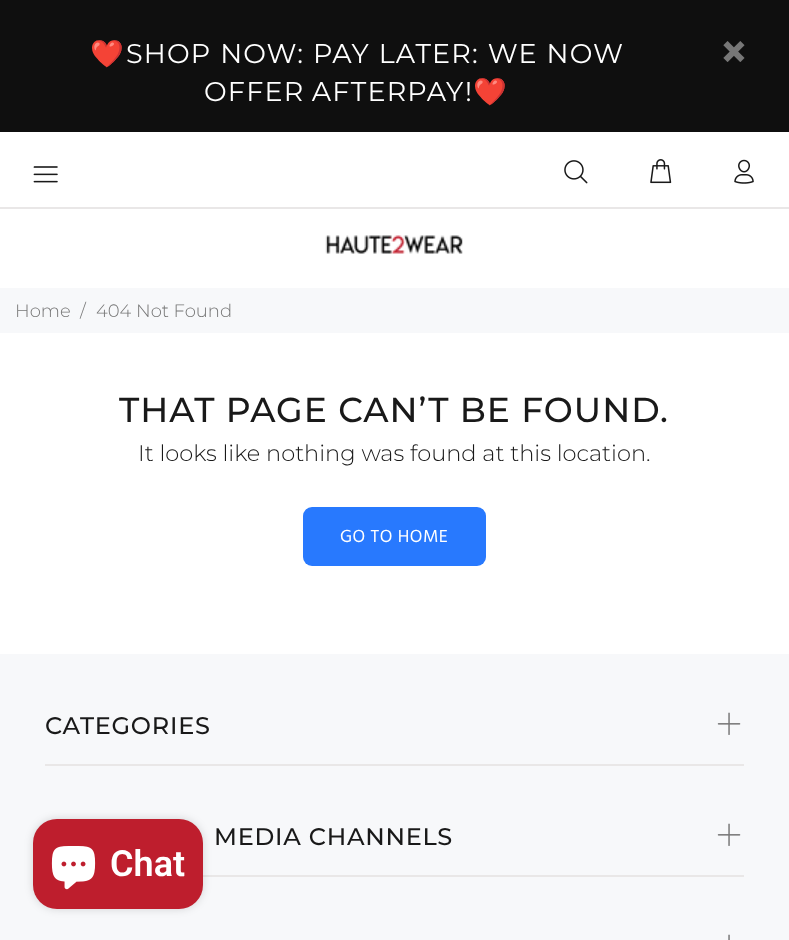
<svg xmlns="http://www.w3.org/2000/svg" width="789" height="940">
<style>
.a{font:27px Noto Color Emoji;letter-spacing:1.2px;fill:#fff}
.b{font:27px Montserrat;letter-spacing:1.2px;fill:#fff}
.c{font:300 18px Montserrat;fill:#777}
.d{font:500 34.5px Montserrat;letter-spacing:1px;fill:#191919}
.e{font:300 22.5px Montserrat;fill:#191919}
.f{font:18px Hind;letter-spacing:0.5px;fill:#fff}
.g{font:500 24px Montserrat;letter-spacing:0.75px;fill:#191919}
.h{font:600 36px Roboto;fill:#fff}
</style>
<rect width="100%" height="100%" fill="#fff"/>
<path fill="#0f0f0f" d="M0 0h789v132H0z"/>
<image href="1.png" x="723" y="41" width="22" height="21"/>
<image href="2.png" x="33" y="166" width="25" height="17"/>
<image href="3.png" x="564" y="160" width="24" height="24"/>
<image href="4.png" x="650" y="159" width="22" height="25"/>
<image href="5.png" x="734" y="159" width="20" height="25"/>
<path fill="#e9e7e7" d="M0 207h789v2H0z"/>
<image href="6.png" x="325" y="235" width="138" height="19"/>
<path fill="#f7f8fa" d="M0 288h789v45H0z"/>
<rect fill="#2879fe" x="303" y="507" width="183" height="59" rx="9"/>
<path fill="#f7f8fa" d="M0 654h789v286H0z"/>
<path fill="#e9e7e7" d="M45 764h699v2H45z"/>
<image href="7.png" x="717" y="712" width="24" height="23"/>
<path fill="#e9e7e7" d="M203 875h541v2H203z"/>
<image href="7.png" x="717" y="823" width="24" height="23"/>
<image href="8.png" x="728" y="934" width="2" height="6"/>
<rect fill="#00000026" filter="blur(4px)" x="33" y="819" width="170" height="90" rx="24"/>
<rect fill="#be1e2d" x="33" y="819" width="170" height="90" rx="24"/>
<image href="9.png" x="51" y="846" width="45" height="44"/>
<text class="a" x="90" y="63">❤️</text>
<text class="b" x="126" y="63" word-spacing="0.5">SHOP NOW: PAY LATER: WE NOW</text>
<text class="b" x="204" y="101" word-spacing="-1">OFFER AFTERPAY!</text>
<text class="a" x="473" y="101">❤️</text>
<text class="c" x="15" y="317">Home</text>
<text class="c" x="80" y="317">/</text>
<text class="c" x="96" y="317">404 Not Found</text>
<text class="d" x="119" y="422">THAT PAGE CAN’T BE FOUND.</text>
<text class="e" x="138" y="461">It looks like nothing was found at this location.</text>
<text class="f" x="340" y="542">GO TO HOME</text>
<text class="g" x="45" y="734">CATEGORIES</text>
<text class="g" x="214" y="845">MEDIA CHANNELS</text>
<text class="h" x="110" y="876">Chat</text>
</svg>
